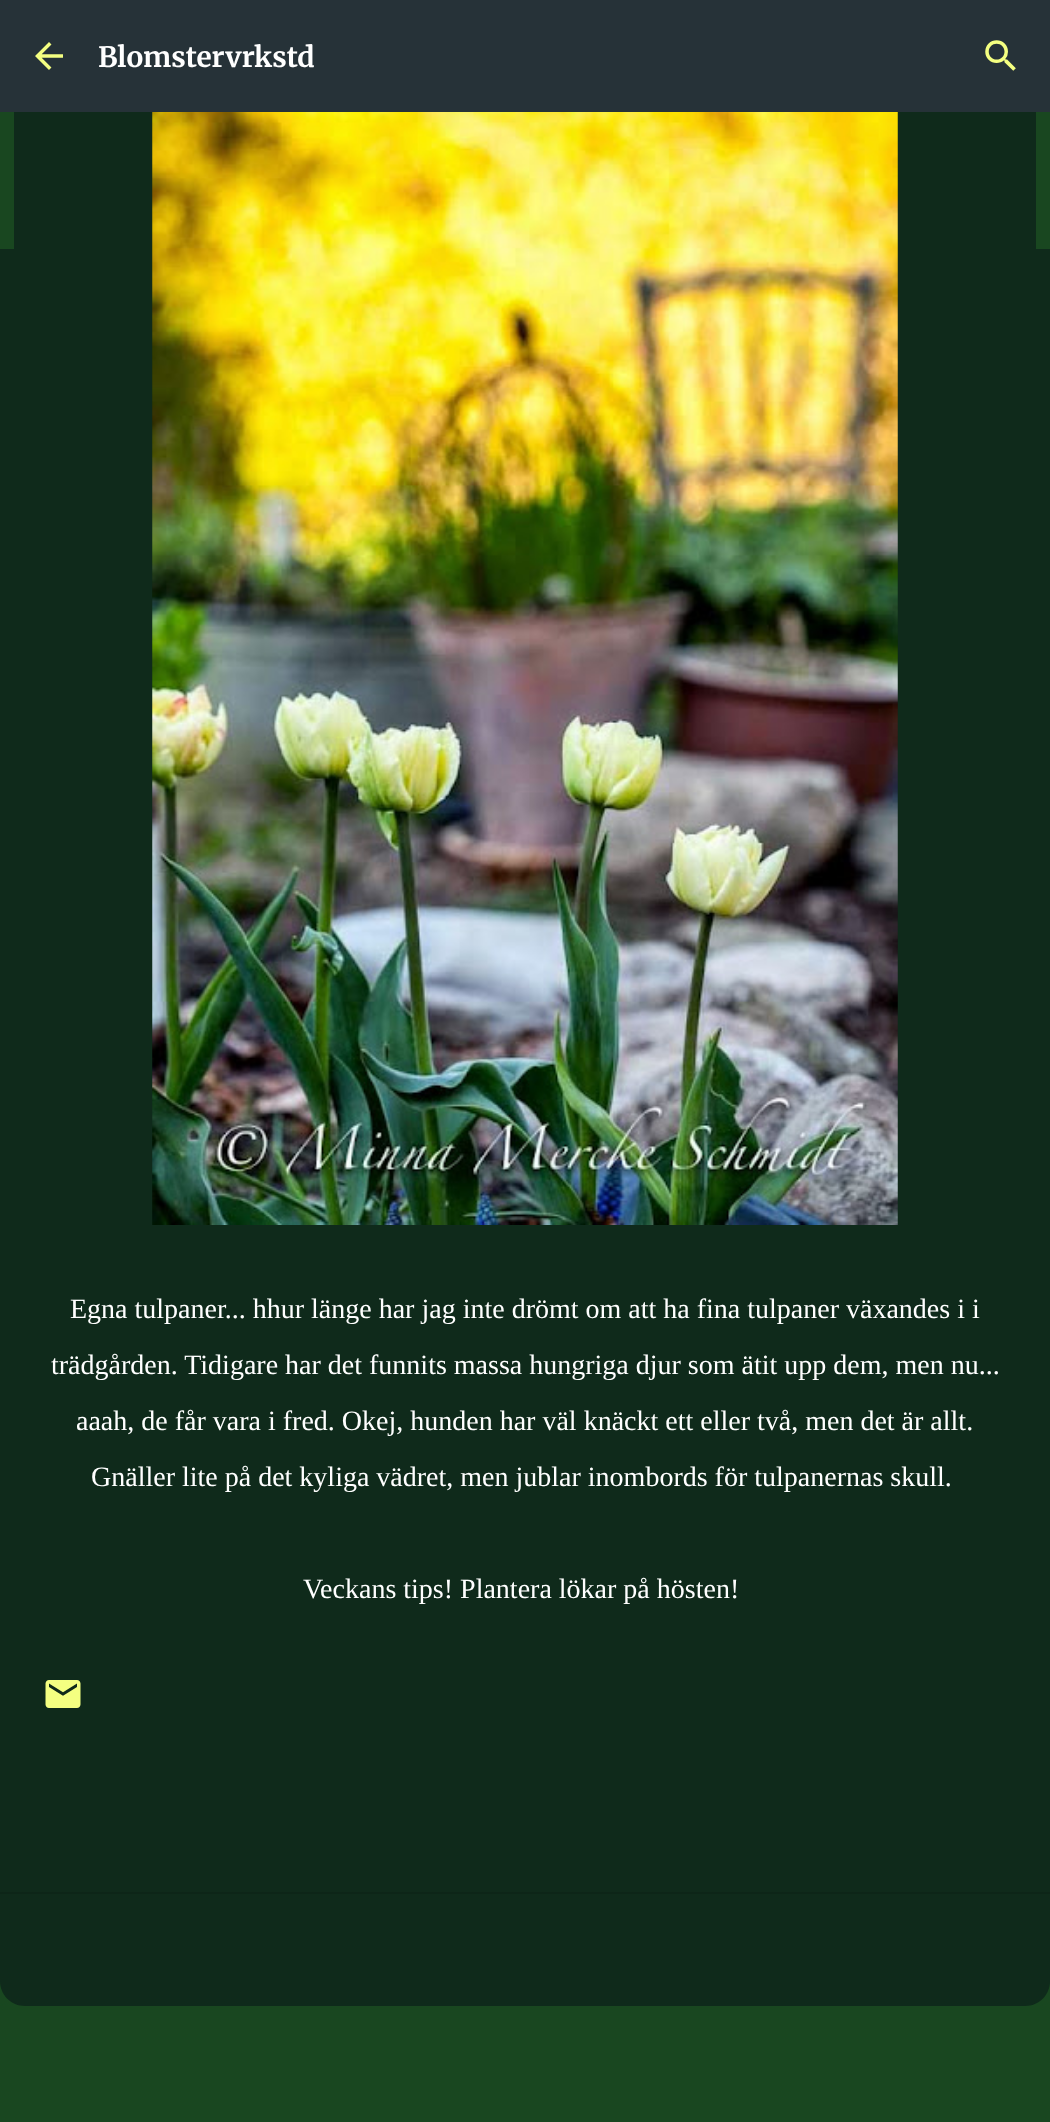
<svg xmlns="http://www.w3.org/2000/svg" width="1050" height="2122">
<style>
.a{font:bold 28px Merriweather;fill:#fff}
.b{font:28px Liberation Serif;fill:#fff}
</style>
<rect width="100%" height="100%" fill="#194720"/>
<path fill="#263238" d="M0 0h1050v112H0z"/>
<image href="1.png" x="35" y="42" width="28" height="28"/>
<image href="2.png" x="985" y="40" width="31" height="31"/>
<path fill="#0f2a1b" d="M0 249h1050v1643H0z"/>
<path fill="#0f2a1b" d="M14 112h1022v137H14z"/>
<image href="3.png" x="152" y="112" width="746" height="1113"/>
<image href="4.png" x="45" y="1680" width="36" height="28"/>
<path fill="#0f2a1b" d="M0 1892h1050v89c0 14-11 25-25 25h-1000c-14 0-25-11-25-25z"/>
<path fill="#0d2518" d="M0 1892h1050v2H0z"/>
<text class="a" x="98" y="67">Blomstervrkstd</text>
<text class="b" x="70" y="1318">Egna tulpaner... hhur länge har jag inte drömt om att ha fina tulpaner växandes i i</text>
<text class="b" x="51" y="1374">trädgården. Tidigare har det funnits massa hungriga djur som ätit upp dem, men nu...</text>
<text class="b" x="76" y="1430">aaah, de får vara i fred. Okej, hunden har väl knäckt ett eller två, men det är allt.</text>
<text class="b" x="91" y="1486">Gnäller lite på det kyliga vädret, men jublar inombords för tulpanernas skull.</text>
<text class="b" x="303" y="1598">Veckans tips! Plantera lökar på hösten!</text>
</svg>
